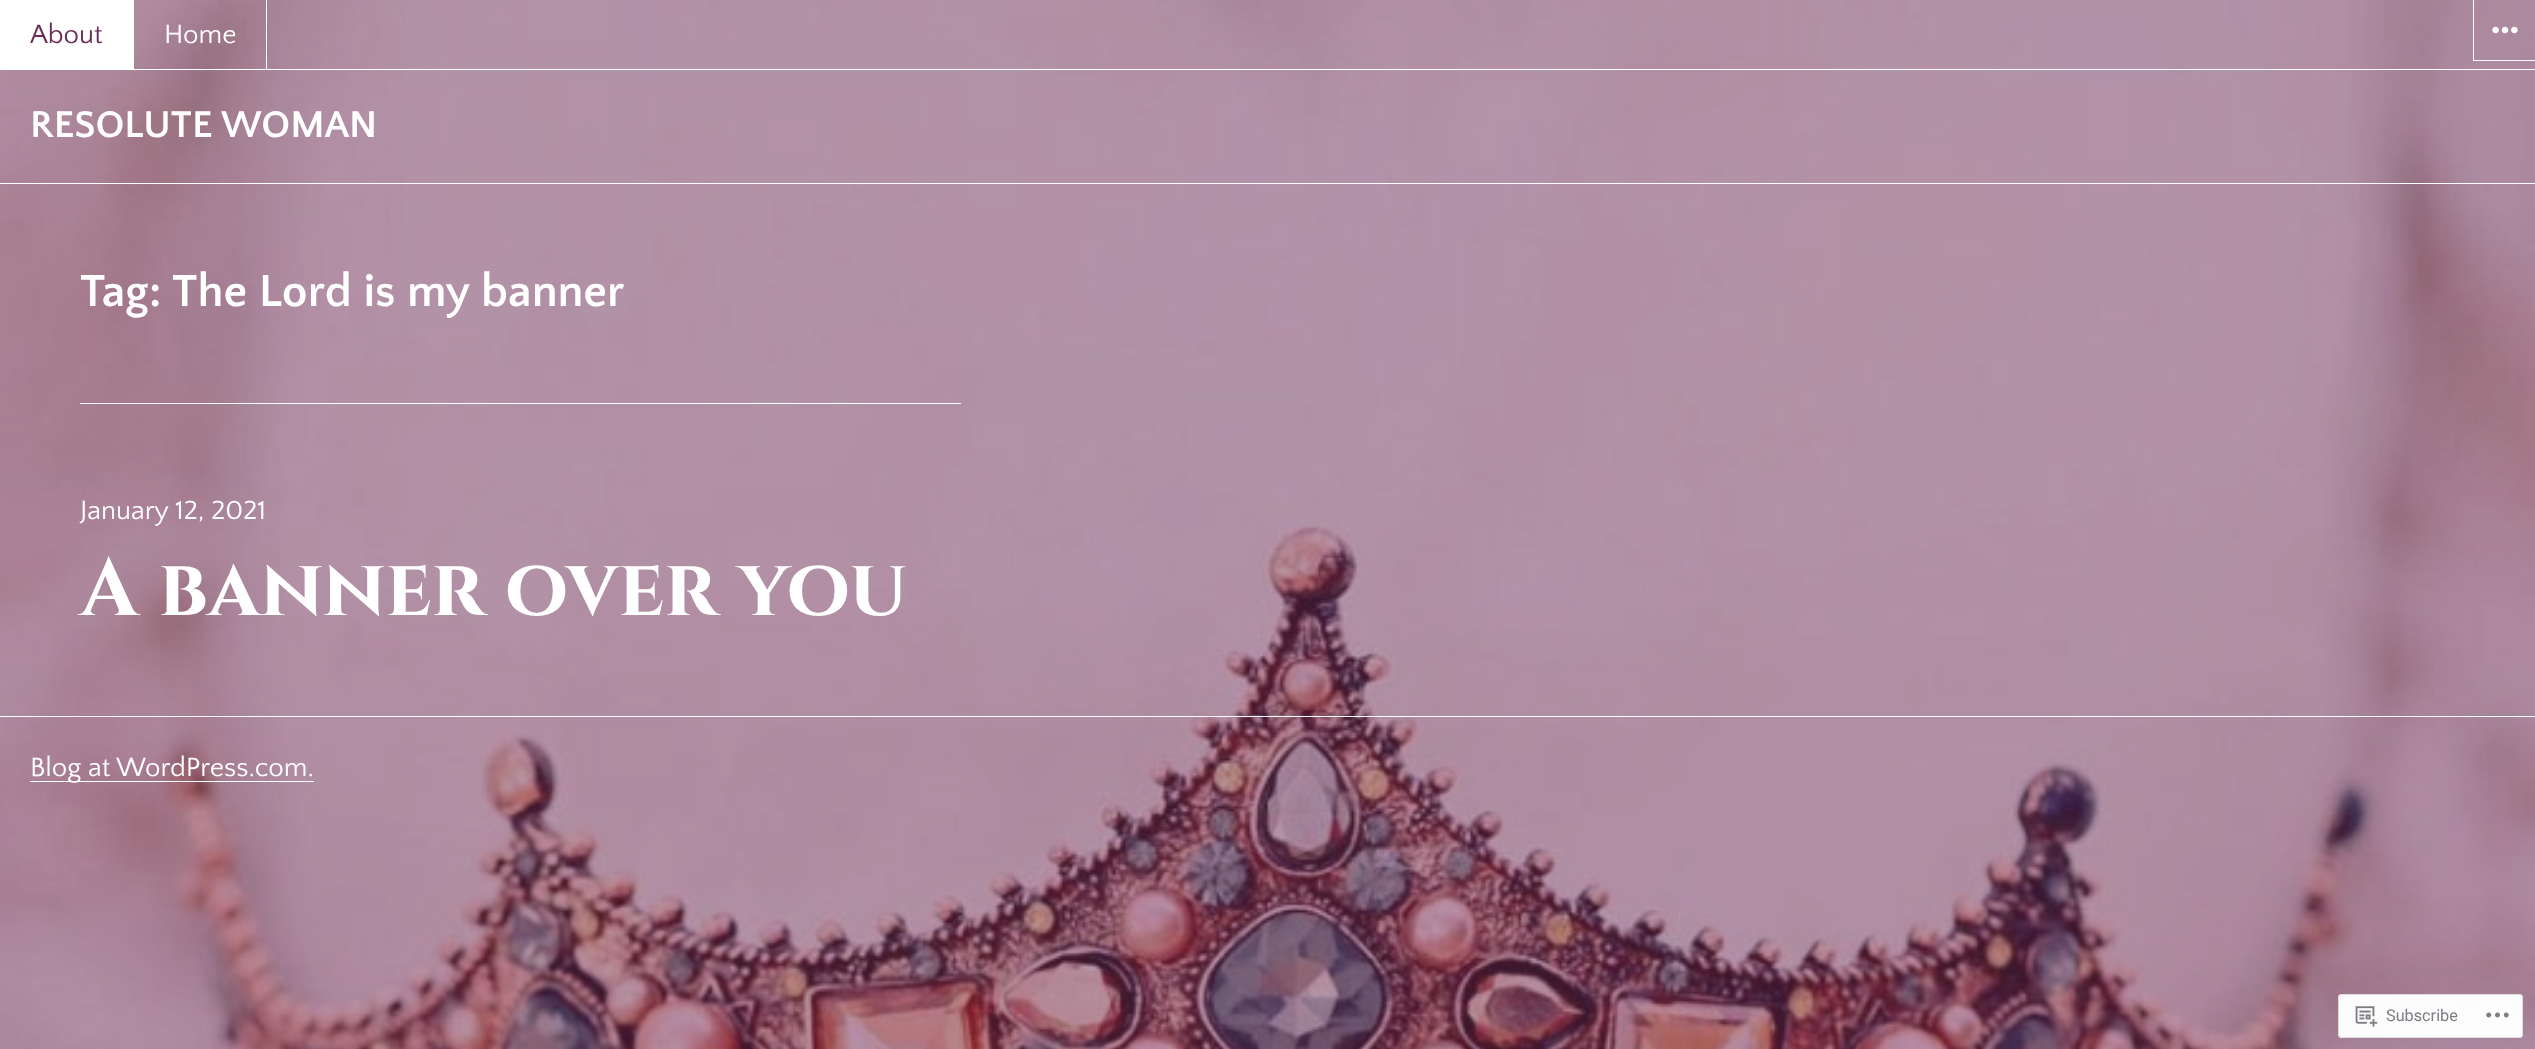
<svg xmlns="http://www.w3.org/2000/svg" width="2535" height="1049">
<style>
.a{font:27.6px Quattrocento Sans;fill:#6e2d57}
.b{font:27.6px Quattrocento Sans;fill:#fff}
.c{font:bold 39px Quattrocento Sans;fill:#fff}
.d{font:bold 47.1px Quattrocento Sans;fill:#fff}
.e{font:bold 81.25px Cinzel;fill:#fff}
.f{font:16.25px Roboto;fill:#7b7f84}
</style>
<rect width="100%" height="100%" fill="#fff"/>
<image href="1.png" x="0" y="0" width="2535" height="1049"/>
<path fill="#fff" d="M0 183h2535v1H0z"/>
<path fill="#fff" d="M0 0h133v69H0z"/>
<path fill="#fff" d="M0 69h2535v1H0z"/>
<path fill="#fff" d="M133 0h1v70H133z"/>
<path fill="#fff" d="M266 0h1v70H266z"/>
<path fill="#fff" d="M2473 60h62v1H2473z"/>
<path fill="#fff" d="M2473 0h1v61H2473z"/>
<image href="2.png" x="2492" y="26" width="26" height="8"/>
<path fill="#fff" d="M80 403h881v1H80z"/>
<path fill="#fff" d="M0 716h2535v1H0z"/>
<path fill="#fff" d="M30 781h284v1H30z"/>
<rect fill="#fffffffa" x="2338" y="994" width="185" height="44" rx="4"/>
<rect fill="none" stroke="#dcdcdefa" x="2338.5" y="994.5" width="184" height="43" rx="3.5"/>
<image href="3.png" x="2355" y="1006" width="23" height="21"/>
<image href="4.png" x="2486" y="1012" width="23" height="6"/>
<text class="a" x="30" y="43">About</text>
<text class="b" x="164" y="43">Home</text>
<text class="c" x="30" y="137">RESOLUTE WOMAN</text>
<text class="d" x="80" y="306">Tag:</text>
<text class="d" x="172" y="306">The Lord is my banner</text>
<text class="b" x="80" y="519">January 12, 2021</text>
<text class="e" x="80" y="615">A banner over you</text>
<text class="b" x="30" y="776">Blog at WordPress.com.</text>
<text class="f" x="2386" y="1021">Subscribe</text>
</svg>
